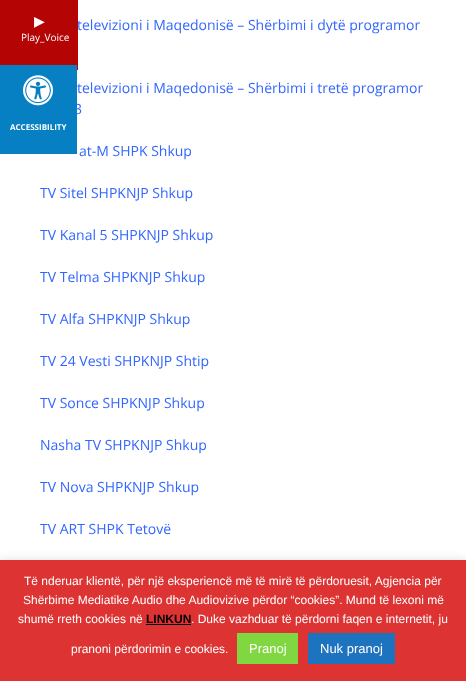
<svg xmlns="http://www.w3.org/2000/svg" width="466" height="681">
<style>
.a{font:14px Open Sans;fill:#36f}
.b{font:10px Open Sans;fill:#fff}
.c{font:14px DejaVu Sans;fill:#fff}
.d{font:bold 8px Open Sans;fill:#fff}
.e{font:12px Liberation Sans;fill:#fff}
.f{font:bold 12px Liberation Sans;fill:#000}
.g{font:13px Liberation Sans;fill:#fff}
</style>
<rect width="100%" height="100%" fill="#fff"/>
<path fill="#acabab4d" filter="blur(5px)" d="M0 559h466v121H0z"/>
<path fill="#d33" d="M0 560h466v121H0z"/>
<path fill="#000" d="M146 624h45v1H146z"/>
<path fill="#81d742" d="M237 633h61v31H237z"/>
<path fill="#1e73be" d="M308 633h87v31H308z"/>
<text class="a" x="77" y="30">televizioni i Maqedonisë – Shërbimi i dytë programor</text>
<path fill="#b40404" d="M0 0h78v70H0z"/>
<text class="b" x="21" y="41">Play_Voice</text>
<text class="c" x="34" y="26">▶</text>
<text class="a" x="77" y="93">televizioni i Maqedonisë – Shërbimi i tretë programor</text>
<text class="a" x="74" y="114">3</text>
<path fill="#0780c3" d="M0 65h77v89H0z"/>
<text class="d" x="10" y="130">ACCESSIBILITY</text>
<image href="1.png" x="23" y="75" width="30" height="31"/>
<text class="a" x="79" y="156">at-M SHPK Shkup</text>
<text class="a" x="40" y="198">TV Sitel SHPKNJP Shkup</text>
<text class="a" x="40" y="240">TV Kanal 5 SHPKNJP Shkup</text>
<text class="a" x="40" y="282">TV Telma SHPKNJP Shkup</text>
<text class="a" x="40" y="324">TV Alfa SHPKNJP Shkup</text>
<text class="a" x="40" y="366">TV 24 Vesti SHPKNJP Shtip</text>
<text class="a" x="40" y="408">TV Sonce SHPKNJP Shkup</text>
<text class="a" x="40" y="450">Nasha TV SHPKNJP Shkup</text>
<text class="a" x="40" y="492">TV Nova SHPKNJP Shkup</text>
<text class="a" x="40" y="534">TV ART SHPK Tetovë</text>
<text class="e" x="24" y="585">Të nderuar klientë, për një eksperiencë më të mirë të përdoruesit, Agjencia për</text>
<text class="e" x="23" y="604">Shërbime Mediatike Audio dhe Audiovizive përdor “cookies”. Mund të lexoni më</text>
<text class="e" x="18" y="623">shumë rreth cookies në</text>
<text class="f" x="146" y="623">LINKUN</text>
<text class="e" x="191" y="623">. Duke vazhduar të përdorni faqen e internetit, ju</text>
<text class="e" x="71" y="653">pranoni përdorimin e cookies.</text>
<text class="g" x="249" y="653">Pranoj</text>
<text class="g" x="320" y="653">Nuk pranoj</text>
</svg>
